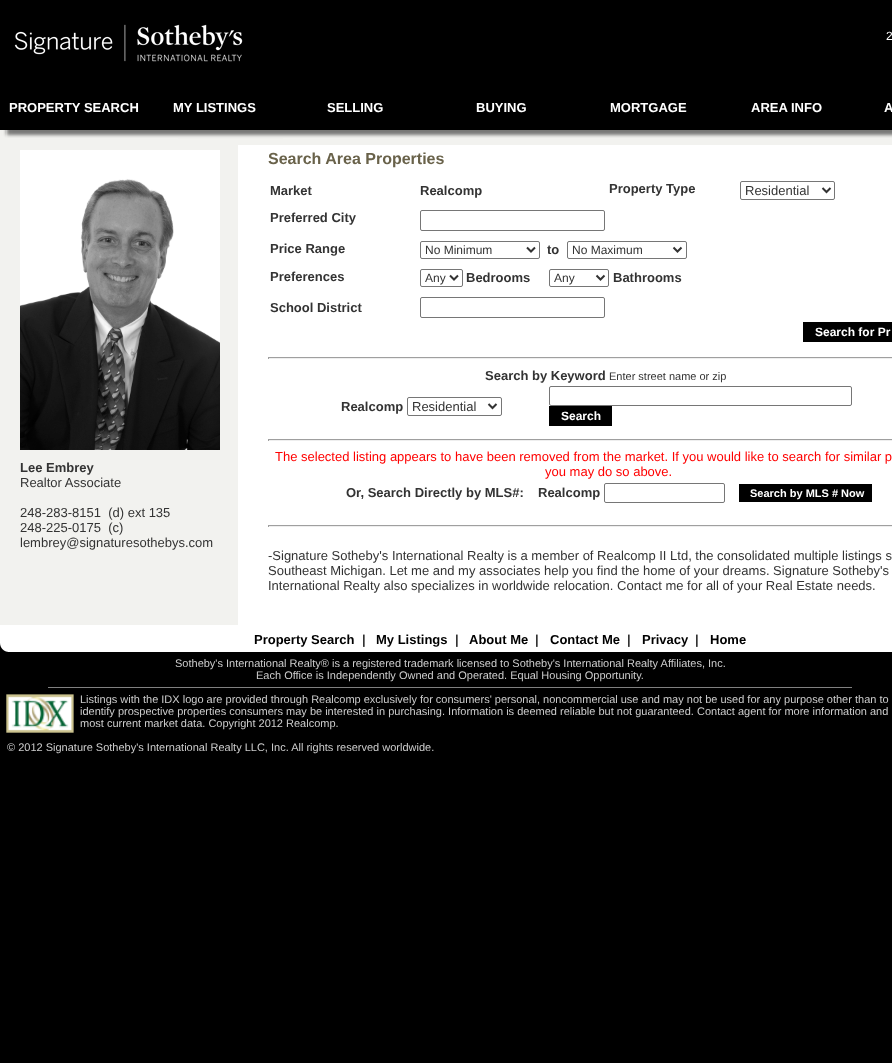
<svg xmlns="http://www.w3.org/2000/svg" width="892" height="1063">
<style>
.a{font:12px Liberation Sans;fill:#fff}
.b{font:bold 13px Liberation Sans;fill:#fff}
.c{font:bold 13px Liberation Sans;fill:#333}
.d{font:13px Liberation Sans;fill:#333}
.e{font:bold 16px Liberation Sans;fill:#69624a}
.f{font:12px Liberation Sans;fill:#333}
.g{font:bold 12px Liberation Sans;fill:#fff}
.h{font:11px Liberation Sans;fill:#333}
.i{font:13px Liberation Sans;fill:#f00}
.j{font:bold 11px Liberation Sans;fill:#fff}
.k{font:bold 13px Liberation Sans;fill:#000}
.l{font:11px Liberation Sans;fill:#ccc}
</style>
<rect width="100%" height="100%" fill="#000"/>
<image href="1.png" x="14" y="24" width="229" height="38"/>
<image href="2.png" x="0" y="130" width="892" height="15"/>
<path fill="#f2f2ef" d="M0 145h238v480H0z"/>
<image href="3.png" x="20" y="150" width="200" height="300"/>
<path fill="#fff" d="M238 145h654v480H238z"/>
<rect fill="none" stroke="#767676" x="740.5" y="181.5" width="94" height="18" rx="1.5"/>
<path fill="none" stroke="#333" stroke-width="2" d="M822.5 188l4 4l4-4"/>
<rect fill="none" stroke="#767676" x="420.5" y="210.5" width="184" height="20" rx="1.5"/>
<rect fill="none" stroke="#767676" x="420.5" y="241.5" width="119" height="17" rx="1.5"/>
<path fill="none" stroke="#333" stroke-width="2" d="M527 247.5l4 4l4-4"/>
<rect fill="none" stroke="#767676" x="567.5" y="241.5" width="119" height="17" rx="1.5"/>
<path fill="none" stroke="#333" stroke-width="2" d="M673.5 247.5l4 4l4-4"/>
<rect fill="none" stroke="#767676" x="420.5" y="269.5" width="42" height="17" rx="1.5"/>
<path fill="none" stroke="#333" stroke-width="2" d="M450 275.5l4 4l4-4"/>
<rect fill="none" stroke="#767676" x="549.5" y="269.5" width="59" height="17" rx="1.5"/>
<path fill="none" stroke="#333" stroke-width="2" d="M596.5 275.5l4 4l4-4"/>
<rect fill="none" stroke="#767676" x="420.5" y="297.5" width="184" height="20" rx="1.5"/>
<path fill="#000" d="M803 322h89v20H803z"/>
<path fill="#9f9f9f" d="M268 357h624v1H268z"/>
<path fill="#eee" d="M268 358h624v1H268z"/>
<path fill="#9f9f9f" d="M268 357h1v2H268z"/>
<rect fill="none" stroke="#767676" x="407.5" y="397.5" width="94" height="18" rx="1.5"/>
<path fill="none" stroke="#333" stroke-width="2" d="M488.5 404l4 4l4-4"/>
<rect fill="none" stroke="#767676" x="549.5" y="386.5" width="302" height="19" rx="1.5"/>
<path fill="#000" d="M549 406h63v20H549z"/>
<path fill="#9f9f9f" d="M268 439h624v1H268z"/>
<path fill="#eee" d="M268 440h624v1H268z"/>
<path fill="#9f9f9f" d="M268 439h1v2H268z"/>
<rect fill="none" stroke="#767676" x="604.5" y="483.5" width="120" height="19" rx="1.5"/>
<path fill="#000" d="M739 484h133v18H739z"/>
<path fill="#9f9f9f" d="M268 525h624v1H268z"/>
<path fill="#eee" d="M268 526h624v1H268z"/>
<path fill="#9f9f9f" d="M268 525h1v2H268z"/>
<image href="4.png" x="0" y="625" width="892" height="27"/>
<path fill="#808080" d="M48 687h804v1H48z"/>
<image href="5.png" x="6" y="694" width="68" height="39"/>
<text class="a" x="886" y="40">2</text>
<text class="b" x="9" y="112">PROPERTY SEARCH</text>
<text class="b" x="173" y="112">MY LISTINGS</text>
<text class="b" x="327" y="112">SELLING</text>
<text class="b" x="476" y="112">BUYING</text>
<text class="b" x="610" y="112">MORTGAGE</text>
<text class="b" x="751" y="112">AREA INFO</text>
<text class="b" x="884" y="112">A</text>
<text class="c" x="20" y="472">Lee Embrey</text>
<text class="d" x="20" y="487">Realtor Associate</text>
<text class="d" xml:space="preserve" x="20" y="517">248-283-8151  (d) ext 135</text>
<text class="d" xml:space="preserve" x="20" y="532">248-225-0175  (c)</text>
<text class="d" x="20" y="547">lembrey@signaturesothebys.com</text>
<text class="e" x="268" y="164">Search Area Properties</text>
<text class="c" x="270" y="195">Market</text>
<text class="c" x="420" y="195">Realcomp</text>
<text class="c" x="609" y="193">Property Type</text>
<text class="d" x="745" y="195">Residential</text>
<text class="c" x="270" y="222">Preferred City</text>
<text class="c" x="270" y="253">Price Range</text>
<text class="f" x="425" y="254">No Minimum</text>
<text class="c" x="547" y="254">to</text>
<text class="f" x="572" y="254">No Maximum</text>
<text class="c" x="270" y="281">Preferences</text>
<text class="f" x="425" y="282">Any</text>
<text class="c" x="466" y="282">Bedrooms</text>
<text class="f" x="554" y="282">Any</text>
<text class="c" x="613" y="282">Bathrooms</text>
<text class="c" x="270" y="312">School District</text>
<text class="g" x="815" y="336">Search for Pr</text>
<text class="c" x="485" y="380">Search by Keyword</text>
<text class="h" x="609" y="380">Enter street name or zip</text>
<text class="c" x="341" y="411">Realcomp</text>
<text class="d" x="412" y="411">Residential</text>
<text class="g" x="561" y="420">Search</text>
<text class="i" x="275" y="461">The selected listing appears to have been removed from the market. If you would like to search for similar p</text>
<text class="i" x="545" y="476">you may do so above.</text>
<text class="c" x="346" y="497">Or, Search Directly by MLS#:</text>
<text class="c" x="538" y="497">Realcomp</text>
<text class="j" x="750" y="497">Search by MLS # Now</text>
<text class="d" x="268" y="560">-Signature Sotheby's International Realty is a member of Realcomp II Ltd, the consolidated multiple listings s</text>
<text class="d" x="268" y="575">Southeast Michigan. Let me and my associates help you find the home of your dreams. Signature Sotheby's</text>
<text class="d" x="268" y="590">International Realty also specializes in worldwide relocation. Contact me for all of your Real Estate needs.</text>
<text class="k" x="254" y="644">Property Search</text>
<text class="c" x="362" y="644">|</text>
<text class="k" x="376" y="644">My Listings</text>
<text class="c" x="455" y="644">|</text>
<text class="k" x="469" y="644">About Me</text>
<text class="c" x="535" y="644">|</text>
<text class="k" x="550" y="644">Contact Me</text>
<text class="c" x="627" y="644">|</text>
<text class="k" x="642" y="644">Privacy</text>
<text class="c" x="695" y="644">|</text>
<text class="k" x="710" y="644">Home</text>
<text class="l" x="175" y="667">Sotheby's International Realty® is a registered trademark licensed to Sotheby's International Realty Affiliates, Inc.</text>
<text class="l" x="256" y="679">Each Office is Independently Owned and Operated. Equal Housing Opportunity.</text>
<text class="l" x="80" y="703">Listings with the IDX logo are provided through Realcomp exclusively for consumers' personal, noncommercial use and may not be used for any purpose other than to</text>
<text class="l" x="80" y="715">identify prospective properties consumers may be interested in purchasing. Information is deemed reliable but not guaranteed. Contact agent for more information and</text>
<text class="l" x="80" y="727">most current market data. Copyright 2012 Realcomp.</text>
<text class="l" x="7" y="751">© 2012 Signature Sotheby's International Realty LLC, Inc. All rights reserved worldwide.</text>
</svg>
